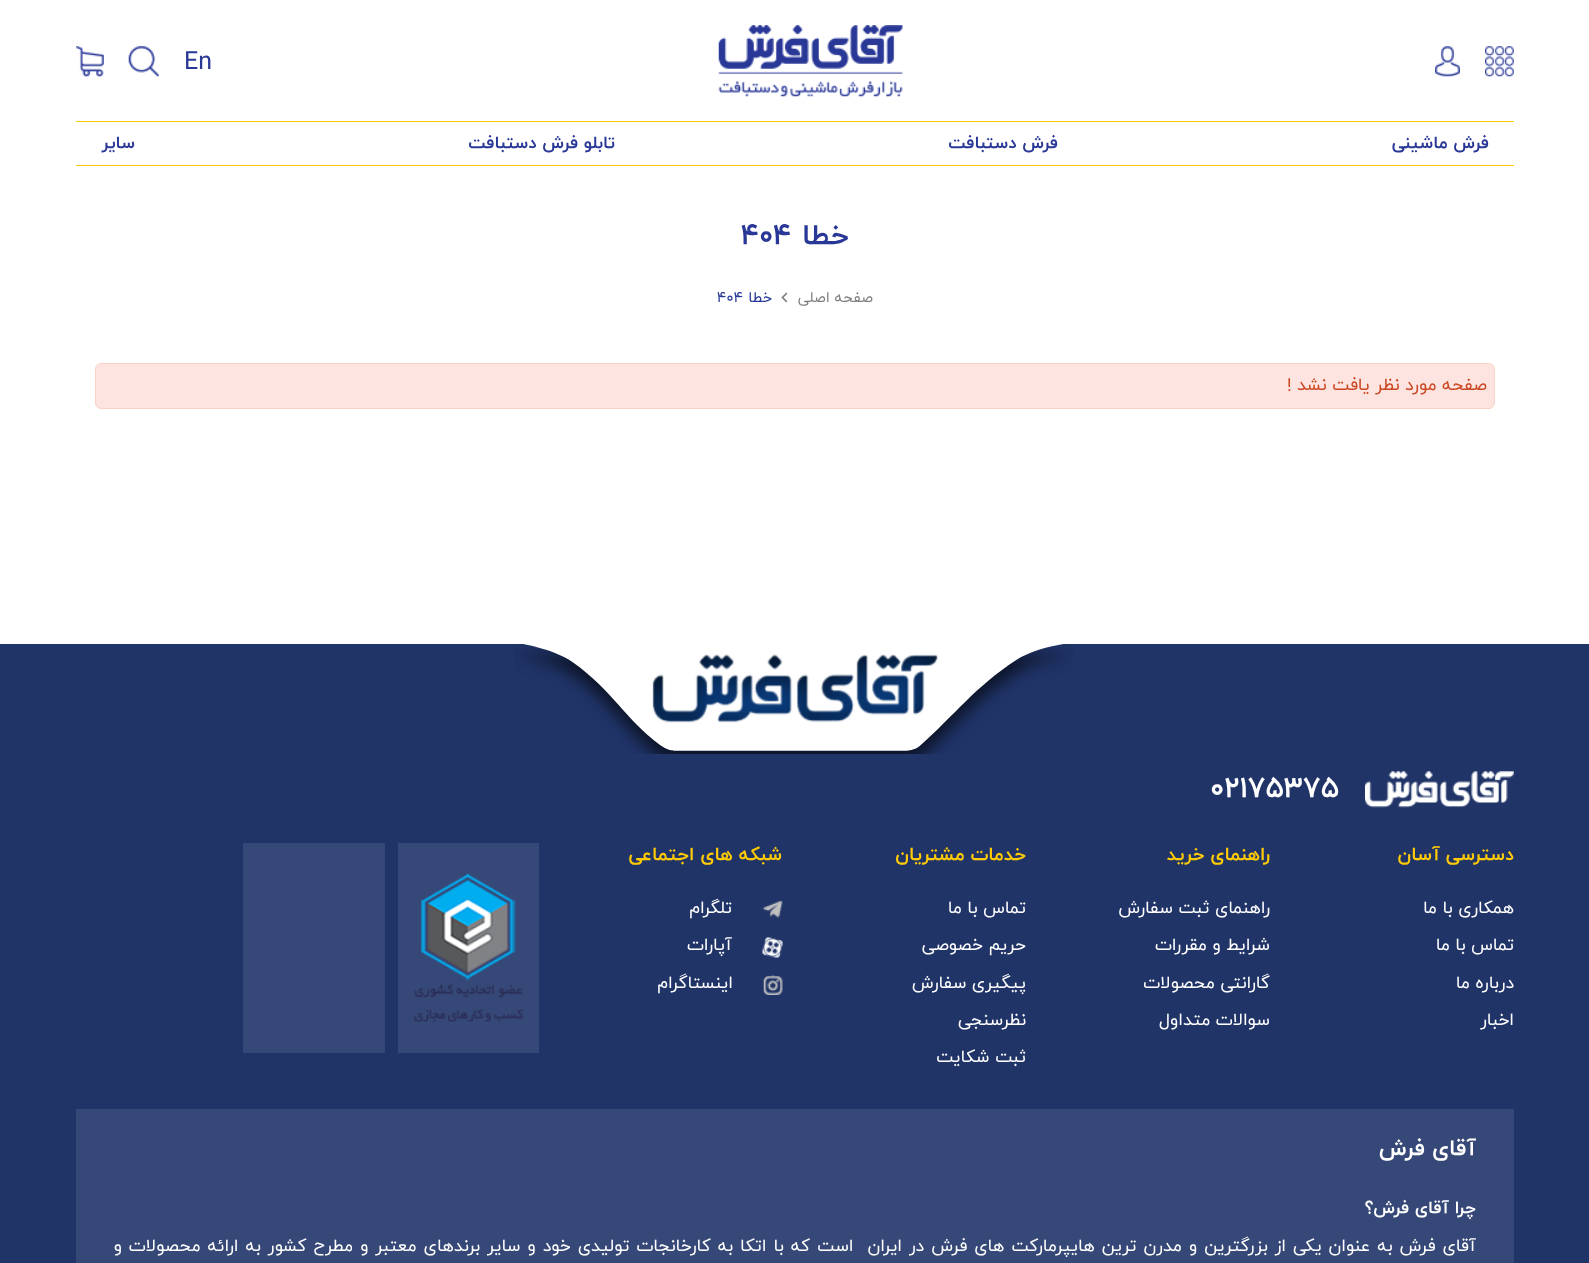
<svg xmlns="http://www.w3.org/2000/svg" width="1589" height="1263">
<style>
.a{font:25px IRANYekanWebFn;fill:#293897}
.b{font:bold 17.5px IRANYekanWebFn;direction:rtl;fill:#293897}
.c{font:bold 29px IRANYekanWebFn;direction:rtl;fill:#293897}
.d{font:bold 29px IRANYekanWebFn;fill:#293897}
.e{font:15px IRANYekanWebFn;direction:rtl;fill:#808080}
.f{font:15px IRANYekanWebFn;direction:rtl;fill:#293897}
.g{font:15px IRANYekanWebFn;fill:#293897}
.h{font:17.5px IRANYekanWebFn;direction:rtl;fill:#cb4721}
.i{font:bold 29px IRANYekanWebFn;fill:#fff}
.j{font:bold 18.75px IRANYekanWebFn;direction:rtl;fill:#ffcb05}
.k{font:17.5px IRANYekanWebFn;direction:rtl;fill:#fff}
.l{font:bold 22.5px IRANYekanWebFn;direction:rtl;fill:#fff}
.m{font:bold 17.5px IRANYekanWebFn;direction:rtl;fill:#fff}
</style>
<rect width="100%" height="100%" fill="#fff"/>
<image href="1.png" x="1485" y="46" width="29" height="31"/>
<image href="2.png" x="1435" y="46" width="25" height="31"/>
<image href="3.png" x="718" y="25" width="185" height="72"/>
<image href="4.png" x="128" y="46" width="31" height="31"/>
<image href="5.png" x="76" y="46" width="28" height="31"/>
<path fill="#ffcb05" d="M76 121h1438v1H76z"/>
<path fill="#ffcb05" d="M76 165h1438v1H76z"/>
<image href="6.png" x="781" y="292" width="7" height="11"/>
<rect fill="#fde4e1" stroke="#fbd3c6" x="95.5" y="363.5" width="1399" height="45" rx="5.5"/>
<path fill="#203468" d="M0 644h1589v619H0z"/>
<image href="7.png" x="514" y="644" width="559" height="110"/>
<image href="8.png" x="1365" y="771" width="149" height="37"/>
<image href="9.png" x="762" y="901" width="21" height="17"/>
<image href="10.png" x="762" y="937" width="21" height="21"/>
<image href="11.png" x="763" y="975" width="20" height="20"/>
<path fill="#364877" d="M398 843h141v210H398z"/>
<image href="12.png" x="414" y="873" width="110" height="149"/>
<path fill="#364877" d="M243 843h142v210H243z"/>
<path fill="#364877" d="M76 1109h1438v154H76z"/>
<text class="a" x="184" y="69">En</text>
<text class="b" x="1489" y="148">فرش ماشینی</text>
<text class="b" x="1058" y="148">فرش دستبافت</text>
<text class="b" x="615" y="148">تابلو فرش دستبافت</text>
<text class="b" x="135" y="148">سایر</text>
<text class="c" x="849" y="244">خطا</text>
<text class="d" x="741" y="244">404</text>
<text class="e" x="873" y="302">صفحه اصلی</text>
<text class="f" x="772" y="302">خطا</text>
<text class="g" x="717" y="302">404</text>
<text class="h" x="1487" y="390">صفحه مورد نظر یافت نشد !</text>
<text class="i" x="1210" y="797">02175375</text>
<text class="j" x="1514" y="860">دسترسی آسان</text>
<text class="k" x="1514" y="913">همکاری با ما</text>
<text class="k" x="1514" y="950">تماس با ما</text>
<text class="k" x="1514" y="988">درباره ما</text>
<text class="k" x="1514" y="1025">اخبار</text>
<text class="j" x="1270" y="860">راهنمای خرید</text>
<text class="k" x="1270" y="913">راهنمای ثبت سفارش</text>
<text class="k" x="1270" y="950">شرایط و مقررات</text>
<text class="k" x="1270" y="988">گارانتی محصولات</text>
<text class="k" x="1270" y="1025">سوالات متداول</text>
<text class="j" x="1026" y="860">خدمات مشتریان</text>
<text class="k" x="1026" y="913">تماس با ما</text>
<text class="k" x="1026" y="950">حریم خصوصی</text>
<text class="k" x="1026" y="988">پیگیری سفارش</text>
<text class="k" x="1026" y="1025">نظرسنجی</text>
<text class="k" x="1026" y="1062">ثبت شکایت</text>
<text class="j" x="782" y="860">شبکه های اجتماعی</text>
<text class="k" x="732" y="913">تلگرام</text>
<text class="k" x="732" y="950">آپارات</text>
<text class="k" x="733" y="988">اینستاگرام</text>
<text class="l" x="1476" y="1155">آقای فرش</text>
<text class="m" x="1476" y="1213">چرا آقای فرش؟</text>
<text class="k" xml:space="preserve" x="1476" y="1251" word-spacing="1.5">آقای فرش به عنوان یکی از بزرگترین و مدرن ترین هایپرمارکت های فرش در ایران  است که با اتکا به کارخانجات تولیدی خود و سایر برندهای معتبر و مطرح کشور به ارائه محصولات و</text>
</svg>
